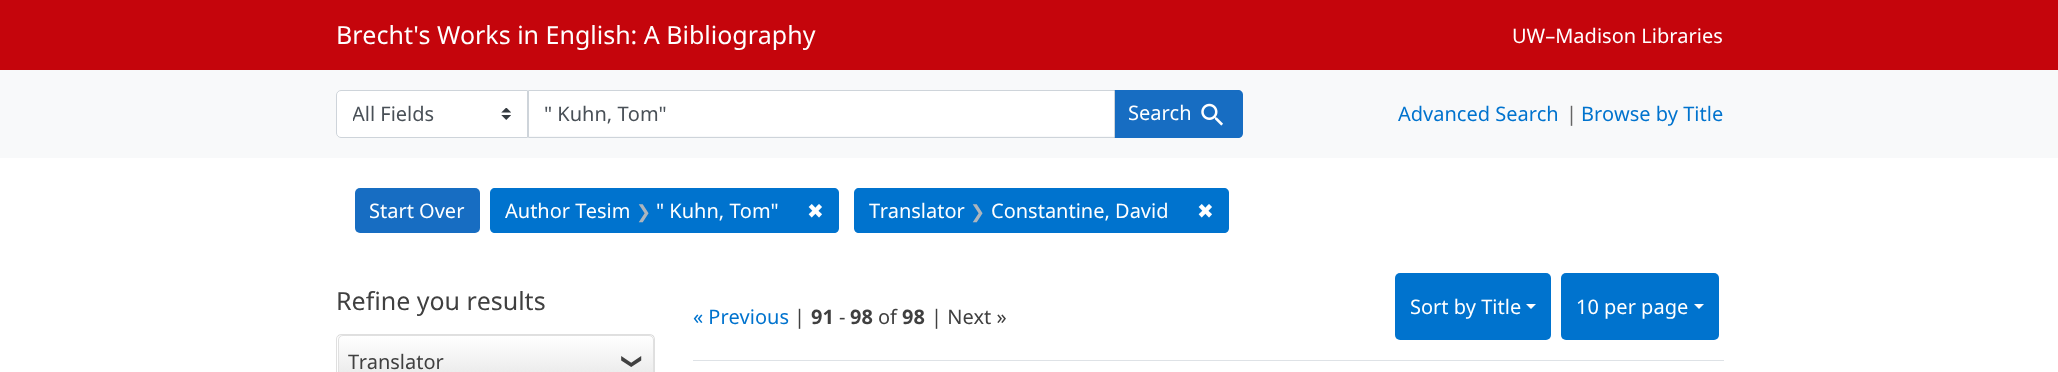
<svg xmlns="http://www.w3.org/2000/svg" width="2058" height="372">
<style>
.a{font:25px Noto Sans;fill:#fff}
.b{font:20px Noto Sans;fill:#fff}
.c{font:20px Noto Sans;fill:#495057}
.d{font:20px Noto Sans;fill:#0073ce}
.e{font:20px Noto Sans;fill:#656565}
.f{font:18px DejaVu Sans;fill:#adb5bd}
.g{font:20px DejaVu Sans;fill:#fff}
.h{font:25px Noto Sans;fill:#404040}
.i{font:20px Noto Sans;fill:#404040}
.j{font:20px DejaVu Sans;fill:#404040}
.k{font:bold 20px Noto Sans;fill:#404040}
</style>
<defs>
<clipPath id="clip1"><rect x="338" y="335" width="316" height="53" rx="5"/></clipPath>
<linearGradient id="g1" gradientUnits="userSpaceOnUse" x1="496" y1="336" x2="496" y2="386"><stop offset="0" stop-color="#fff"/><stop offset="1" stop-color="#e5e5e5"/></linearGradient>
<clipPath id="clip2"><path d="M353 99h138v30H353z"/></clipPath>
</defs>
<rect width="100%" height="100%" fill="#fff"/>
<path fill="#c5050c" d="M0 0h2058v70H0z"/>
<path fill="#f8f9fa" d="M0 70h2058v88H0z"/>
<path fill="#fff" d="M341 90h187v48h-187c-3 0-5-2-5-5v-38c0-3 2-5 5-5z"/>
<image href="1.png" x="501" y="108" width="10" height="12"/>
<path fill="none" stroke="#ced4da" d="M341 90.5h186.5v47h-186.5c-2.5 0-4.5-2-4.5-4.5v-38c0-2.5 2-4.5 4.5-4.5z"/>
<path fill="#fff" d="M529 91h585v45H529z"/>
<path fill="#176dc2" d="M1114 90h124c3 0 5 2 5 5v38c0 3-2 5-5 5h-124z"/>
<path fill="none" stroke="#ced4da" d="M528.5 90.5h586v47H528.5z"/>
<image href="2.png" x="1201" y="103" width="22" height="23"/>
<rect fill="#176dc2" x="355" y="188" width="125" height="45" rx="5"/>
<path fill="#0073ce" d="M495 188h299v45h-299c-3 0-5-2-5-5v-35c0-3 2-5 5-5z"/>
<path fill="#0073ce" d="M793 188h41c3 0 5 2 5 5v35c0 3-2 5-5 5h-41z"/>
<path fill="#0073ce" d="M859 188h324v45h-324c-3 0-5-2-5-5v-35c0-3 2-5 5-5z"/>
<path fill="#0073ce" d="M1181 188h43c3 0 5 2 5 5v35c0 3-2 5-5 5h-43z"/>
<rect fill="none" stroke="#dfdfdf" x="336.5" y="334.5" width="318" height="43" rx="4.5"/>
<path fill="#00000008" d="M338 335h316v5H338z"/>
<g clip-path="url(#clip1)">
<path fill="url(#g1)" d="M338 336h316v36H338z"/>
</g>
<rect fill="none" stroke="#e0e0e0" x="338.5" y="335.5" width="315" height="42" rx="4.5"/>
<path fill="#dee2e6" d="M693 360h1031v1H693z"/>
<rect fill="#0073ce" x="1395" y="273" width="156" height="67" rx="5"/>
<path fill="#fff" d="M1526 304h10l-5 5z"/>
<rect fill="#0073ce" x="1561" y="273" width="158" height="67" rx="5"/>
<path fill="#fff" d="M1694 304h10l-5 5z"/>
<text class="a" x="336" y="44">Brecht's Works in English: A Bibliography</text>
<text class="b" x="1512" y="43">UW–Madison Libraries</text>
<g clip-path="url(#clip2)">
<text class="c" x="352" y="121">All Fields</text>
</g>
<text class="c" x="544" y="121">" Kuhn, Tom"</text>
<text class="b" x="1128" y="120">Search</text>
<text class="d" x="1398" y="121">Advanced Search</text>
<text class="e" x="1566" y="121">|</text>
<text class="d" x="1581" y="121">Browse by Title</text>
<text class="b" x="369" y="218">Start Over</text>
<text class="b" x="505" y="218">Author Tesim</text>
<text class="f" x="636" y="218">❯</text>
<text class="b" x="656" y="218">" Kuhn, Tom"</text>
<text class="g" x="807" y="218">✖</text>
<text class="b" x="869" y="218">Translator</text>
<text class="f" x="970" y="218">❯</text>
<text class="b" x="991" y="218">Constantine, David</text>
<text class="g" x="1197" y="218">✖</text>
<text class="h" x="336" y="310">Refine you results</text>
<text class="i" x="348" y="369">Translator</text>
<text class="j" x="626" y="353" transform="rotate(90 626 353)">❯</text>
<text class="d" x="693" y="324">« Previous</text>
<text class="i" x="794" y="324">|</text>
<text class="k" x="811" y="324">91</text>
<text class="i" x="839" y="324">-</text>
<text class="k" x="850" y="324">98</text>
<text class="i" x="878" y="324">of</text>
<text class="k" x="902" y="324">98</text>
<text class="i" x="931" y="324">| Next »</text>
<text class="b" x="1410" y="314">Sort by Title</text>
<text class="b" x="1576" y="314">10 per page</text>
</svg>
